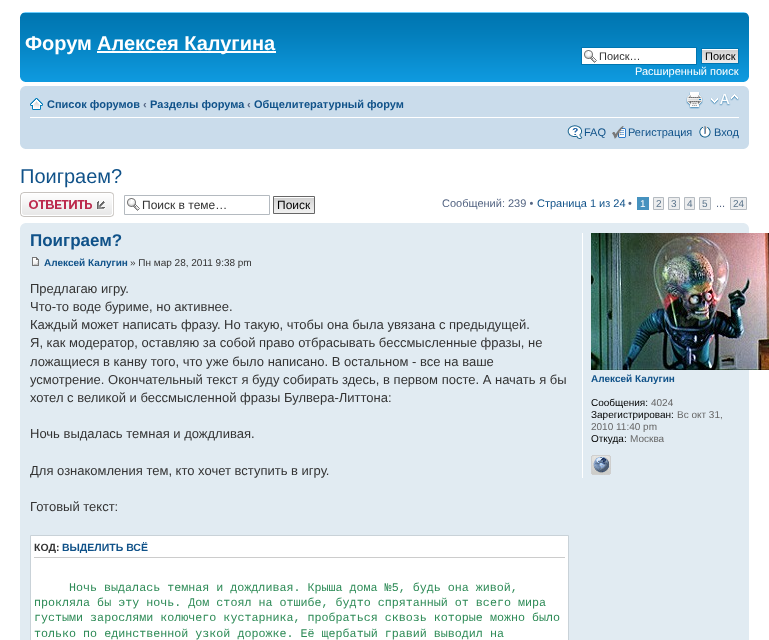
<svg xmlns="http://www.w3.org/2000/svg" width="769" height="640">
<style>
.a{font:bold 20px Liberation Sans;fill:#fff}
.b{font:11px Liberation Sans;fill:#333}
.c{font:11px Liberation Sans;fill:#000}
.d{font:11px Liberation Sans;fill:#fff}
.e{font:bold 11px Liberation Sans;fill:#105289}
.f{font:bold 11px Liberation Sans;fill:#536482}
.g{font:11px Liberation Sans;fill:#105289}
.h{font:20px Liberation Sans;fill:#105289}
.i{font:12px Liberation Sans;fill:#333}
.j{font:12px Liberation Sans;fill:#000}
.k{font:11px Liberation Sans;fill:#536482}
.l{font:10px Liberation Sans;fill:#fff}
.m{font:10px Liberation Sans;fill:#5c758c}
.n{font:bold 17px Liberation Sans;fill:#105289}
.o{font:bold 10px Liberation Sans;fill:#105289}
.p{font:10px Liberation Sans;fill:#333}
.q{font:13px Liberation Sans;fill:#333}
.r{font:bold 10.5px Liberation Sans;fill:#333}
.s{font:bold 10.5px Liberation Sans;fill:#105289}
.t{font:11.7px Liberation Mono;fill:#2e8b57}
.u{font:10px Liberation Sans;fill:#000}
.v{font:10px Liberation Sans;fill:#666}
</style>
<rect width="100%" height="100%" fill="#fff"/>
<image href="1.png" x="20" y="12" width="729" height="70"/>
<image href="2.png" x="20" y="12" width="5" height="5"/>
<image href="3.png" x="744" y="12" width="5" height="5"/>
<path fill="#fff" d="M97 51h179v2H97z"/>
<path fill="#fff" d="M582 48h114v16H582z"/>
<image href="4.png" x="584" y="50" width="13" height="13"/>
<path fill="none" stroke="#0075b0" d="M581.5 47.5h115v17H581.5z"/>
<image href="5.png" x="702" y="49" width="36" height="14"/>
<path fill="none" stroke="#0075b0" d="M701.5 48.5h37v15H701.5z"/>
<image href="6.png" x="20" y="77" width="5" height="5"/>
<image href="7.png" x="744" y="77" width="5" height="5"/>
<path fill="#cadceb" d="M20 86h729v63H20z"/>
<image href="8.png" x="20" y="86" width="5" height="5"/>
<image href="9.png" x="744" y="86" width="5" height="5"/>
<path fill="#fff" d="M30 117h709v1H30z"/>
<image href="10.png" x="30" y="98" width="13" height="12"/>
<image href="11.png" x="686" y="92" width="17" height="17"/>
<image href="12.png" x="710" y="94" width="29" height="12"/>
<image href="13.png" x="567" y="125" width="16" height="14"/>
<image href="14.png" x="612" y="126" width="14" height="13"/>
<image href="15.png" x="699" y="126" width="12" height="12"/>
<image href="16.png" x="20" y="144" width="5" height="5"/>
<image href="17.png" x="744" y="144" width="5" height="5"/>
<image href="18.png" x="20" y="192" width="94" height="25"/>
<image href="4.png" x="127" y="198" width="13" height="13"/>
<path fill="none" stroke="#b4bac0" d="M124.5 195.5h145v19H124.5z"/>
<image href="19.png" x="274" y="197" width="40" height="16"/>
<path fill="none" stroke="#666" d="M273.5 196.5h41v17H273.5z"/>
<path fill="#4692bf" d="M637 197h12v13H637z"/>
<path fill="#ecedee" stroke="#b4bac0" d="M653.5 197.5h10v12H653.5z"/>
<path fill="#ecedee" stroke="#b4bac0" d="M668.5 197.5h11v12H668.5z"/>
<path fill="#ecedee" stroke="#b4bac0" d="M684.5 197.5h10v12H684.5z"/>
<path fill="#ecedee" stroke="#b4bac0" d="M699.5 197.5h11v12H699.5z"/>
<path fill="#ecedee" stroke="#b4bac0" d="M730.5 197.5h16v12H730.5z"/>
<path fill="#e1ebf2" d="M20 223h729v417H20z"/>
<image href="20.png" x="20" y="223" width="5" height="5"/>
<image href="21.png" x="744" y="223" width="5" height="5"/>
<image href="22.png" x="32" y="257" width="7" height="9"/>
<path fill="#fff" stroke="#c9d2d8" d="M30.5 535.5h538v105H30.5z"/>
<path fill="#ccc" d="M34 557h531v1H34z"/>
<path fill="#fff" d="M582 233h1v245H582z"/>
<image href="23.png" x="591" y="233" width="178" height="137"/>
<image href="24.png" x="591" y="455" width="20" height="20"/>
<text class="a" x="25" y="50">Форум</text>
<text class="a" x="97" y="50">Алексея Калугина</text>
<text class="b" x="599" y="60">Поиск…</text>
<text class="c" x="705" y="60">Поиск</text>
<text class="d" x="635" y="75">Расширенный поиск</text>
<text class="e" x="47" y="108">Список форумов</text>
<text class="f" x="143" y="108">‹</text>
<text class="e" x="150" y="108">Разделы форума</text>
<text class="f" x="247" y="108">‹</text>
<text class="e" x="254" y="108">Общелитературный форум</text>
<text class="g" x="584" y="136">FAQ</text>
<text class="g" x="628" y="136">Регистрация</text>
<text class="g" x="714" y="136">Вход</text>
<text class="h" x="20" y="183">Поиграем?</text>
<text class="i" x="142" y="209">Поиск в теме…</text>
<text class="j" x="277" y="209">Поиск</text>
<text class="k" x="442" y="207">Сообщений: 239 •</text>
<text class="g" x="537" y="207">Страница 1 из 24</text>
<text class="k" x="628" y="207">•</text>
<text class="l" x="640" y="207">1</text>
<text class="m" x="656" y="207">2</text>
<text class="m" x="671" y="207">3</text>
<text class="m" x="687" y="207">4</text>
<text class="m" x="702" y="207">5</text>
<text class="m" x="733" y="207">24</text>
<text class="k" x="716" y="207">...</text>
<text class="n" x="30" y="246">Поиграем?</text>
<text class="o" x="44" y="266">Алексей Калугин</text>
<text class="p" x="130" y="266">» Пн мар 28, 2011 9:38 pm</text>
<text class="q" x="30" y="293">Предлагаю игру.</text>
<text class="q" x="30" y="311">Что-то воде буриме, но активнее.</text>
<text class="q" x="30" y="329">Каждый может написать фразу. Но такую, чтобы она была увязана с предыдущей.</text>
<text class="q" x="30" y="347">Я, как модератор, оставляю за собой право отбрасывать бессмысленные фразы, не</text>
<text class="q" x="30" y="366">ложащиеся в канву того, что уже было написано. В остальном - все на ваше</text>
<text class="q" x="30" y="384">усмотрение. Окончательный текст я буду собирать здесь, в первом посте. А начать я бы</text>
<text class="q" x="30" y="402">хотел с великой и бессмысленной фразы Булвера-Литтона:</text>
<text class="q" x="30" y="438">Ночь выдалась темная и дождливая.</text>
<text class="q" x="30" y="475">Для ознакомления тем, кто хочет вступить в игру.</text>
<text class="q" x="30" y="511">Готовый текст:</text>
<text class="r" x="34" y="551">КОД:</text>
<text class="s" x="62" y="551">ВЫДЕЛИТЬ ВСЁ</text>
<text class="t" x="69" y="591">Ночь выдалась темная и дождливая. Крыша дома №5, будь она живой,</text>
<text class="t" x="34" y="606">прокляла бы эту ночь. Дом стоял на отшибе, будто спрятанный от всего мира</text>
<text class="t" x="34" y="621">густыми зарослями колючего кустарника, пробраться сквозь которые можно было</text>
<text class="t" x="34" y="637">только по единственной узкой дорожке. Её щербатый гравий выводил на</text>
<text class="o" x="591" y="382">Алексей Калугин</text>
<text class="u" x="591" y="406">Сообщения:</text>
<text class="v" x="651" y="406">4024</text>
<text class="u" x="591" y="418">Зарегистрирован:</text>
<text class="v" x="677" y="418">Вс окт 31,</text>
<text class="v" x="591" y="430">2010 11:40 pm</text>
<text class="u" x="591" y="442">Откуда:</text>
<text class="v" x="630" y="442">Москва</text>
</svg>
